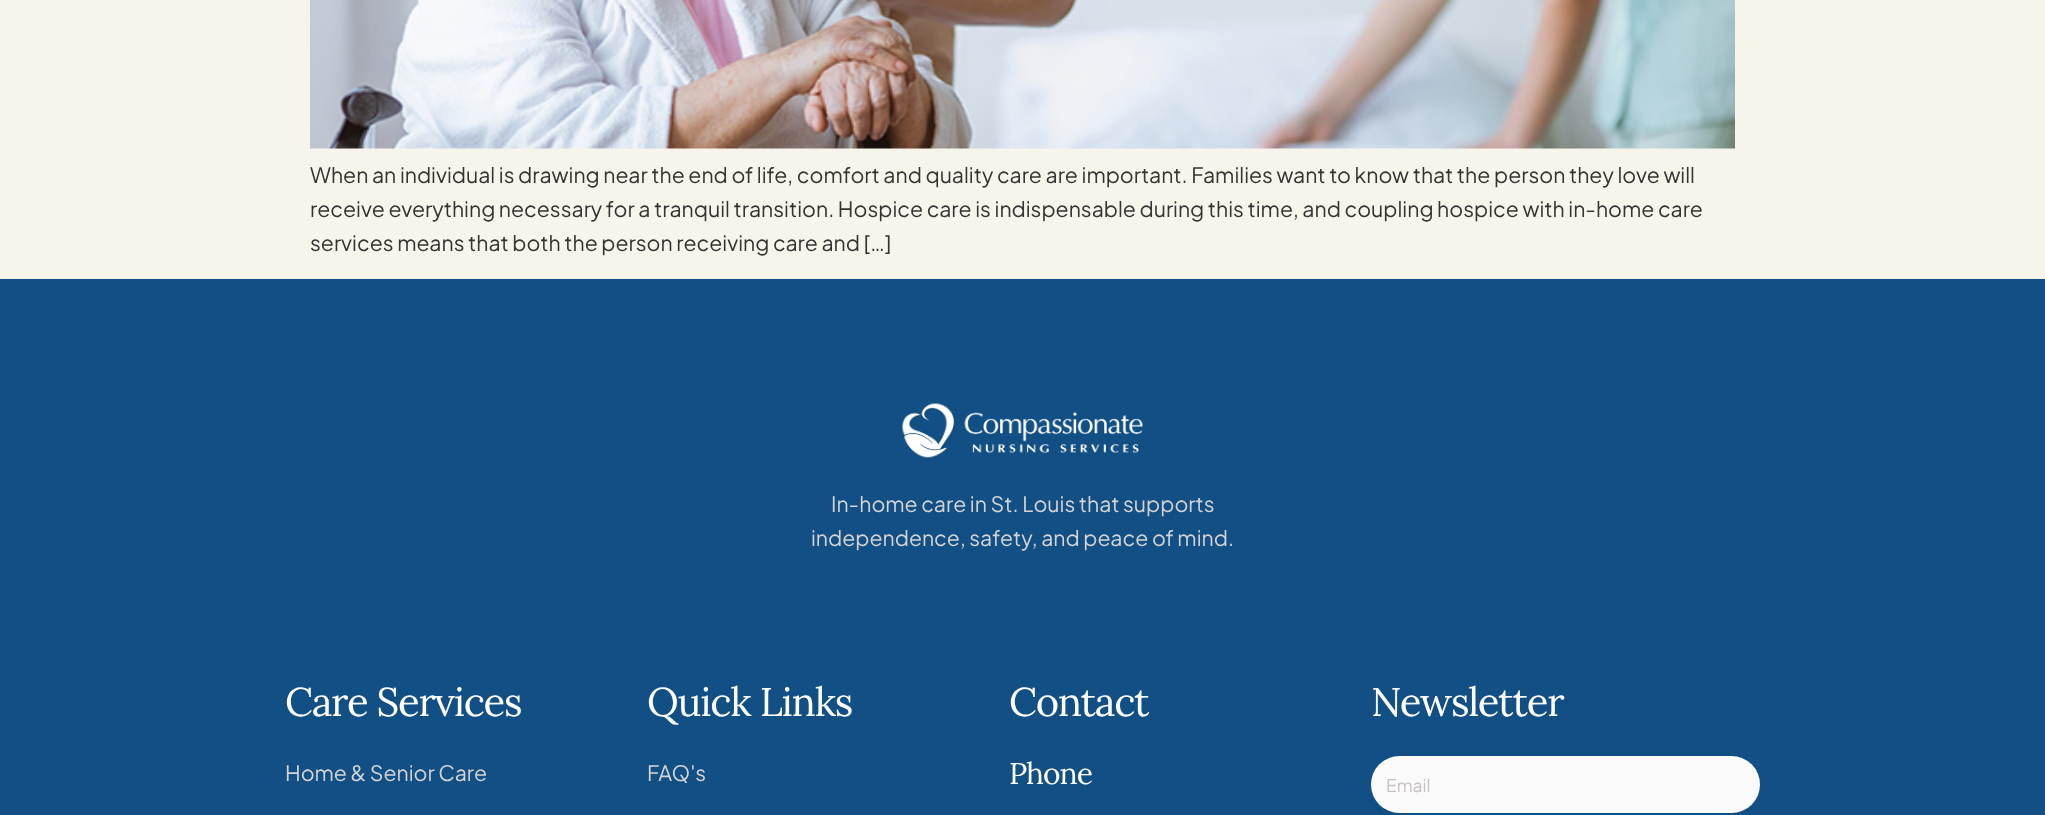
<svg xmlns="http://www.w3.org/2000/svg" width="2045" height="815">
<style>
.a{font:21.25px Plus Jakarta Sans;fill:#333}
.b{font:21.25px Plus Jakarta Sans;fill:#d4d4d4}
.c{font:40px Lora;letter-spacing:-1.25px;fill:#fff}
.d{font:30px Lora;letter-spacing:-1px;fill:#fff}
.e{font:17.5px Plus Jakarta Sans;fill:#c9c1c1}
</style>
<rect width="100%" height="100%" fill="#f7f5eb"/>
<image href="1.png" x="310" y="0" width="1425" height="149"/>
<path fill="#124f84" d="M0 279h2045v536H0z"/>
<image href="2.png" x="902" y="403" width="241" height="55"/>
<rect fill="#fafafa" x="1371" y="756" width="389" height="57" rx="28.5"/>
<text class="a" x="310" y="183">When an individual is drawing near the end of life, comfort and quality care are important. Families want to know that the person they love will</text>
<text class="a" x="310" y="217">receive everything necessary for a tranquil transition. Hospice care is indispensable during this time, and coupling hospice with in-home care</text>
<text class="a" x="310" y="251">services means that both the person receiving care and […]</text>
<text class="b" x="831" y="512">In-home care in St. Louis that supports</text>
<text class="b" x="811" y="546">independence, safety, and peace of mind.</text>
<text class="c" x="285" y="716">Care Services</text>
<text class="b" x="285" y="781">Home &amp; Senior Care</text>
<text class="c" x="647" y="716">Quick Links</text>
<text class="b" x="647" y="781">FAQ's</text>
<text class="c" x="1009" y="716">Contact</text>
<text class="d" x="1009" y="784">Phone</text>
<text class="c" x="1371" y="716">Newsletter</text>
<text class="e" x="1386" y="792">Email</text>
</svg>
